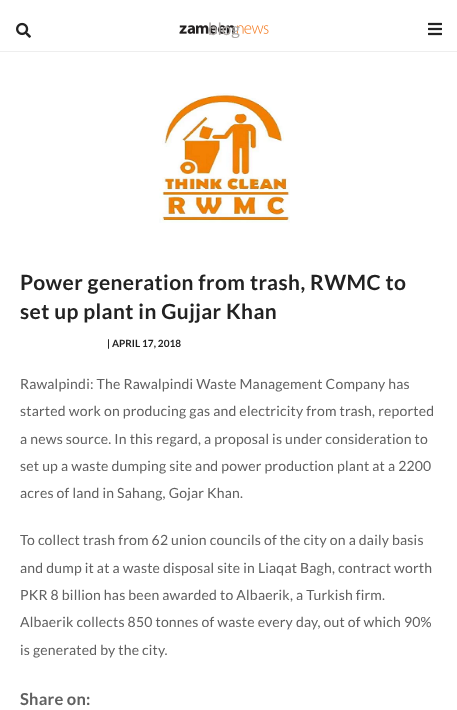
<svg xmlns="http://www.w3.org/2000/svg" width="457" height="710">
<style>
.a{font:17px Lato;fill:#ada9a6}
.b{font:bold 21px Lato;letter-spacing:0.4px;fill:#222}
.c{font:bold 10px Lato;fill:#222}
.d{font:14px Lato;letter-spacing:0.2px;fill:#606060}
.e{font:bold 16.5px Lato;letter-spacing:0.2px;fill:#606060}
</style>
<rect width="100%" height="100%" fill="#fff"/>
<path fill="#eee" d="M0 51h457v1H0z"/>
<image href="1.png" x="16" y="22" width="15" height="16"/>
<image href="2.png" x="179" y="25" width="90" height="9"/>
<image href="3.png" x="428" y="22" width="14" height="14"/>
<image href="4.png" x="159" y="93" width="131" height="130"/>
<text class="a" x="208" y="35">blog</text>
<text class="b" x="20" y="290">Power generation from trash, RWMC to</text>
<text class="b" x="20" y="319">set up plant in Gujjar Khan</text>
<text class="c" x="107" y="347">| APRIL 17, 2018</text>
<text class="d" x="20" y="389">Rawalpindi: The Rawalpindi Waste Management Company has</text>
<text class="d" x="20" y="416">started work on producing gas and electricity from trash, reported</text>
<text class="d" x="20" y="444">a news source. In this regard, a proposal is under consideration to</text>
<text class="d" x="20" y="471">set up a waste dumping site and power production plant at a 2200</text>
<text class="d" x="20" y="498">acres of land in Sahang, Gojar Khan.</text>
<text class="d" x="20" y="545">To collect trash from 62 union councils of the city on a daily basis</text>
<text class="d" x="20" y="573">and dump it at a waste disposal site in Liaqat Bagh, contract worth</text>
<text class="d" x="20" y="600">PKR 8 billion has been awarded to Albaerik, a Turkish firm.</text>
<text class="d" x="20" y="627">Albaerik collects 850 tonnes of waste every day, out of which 90%</text>
<text class="d" x="20" y="655">is generated by the city.</text>
<text class="e" x="20" y="705">Share on:</text>
</svg>
